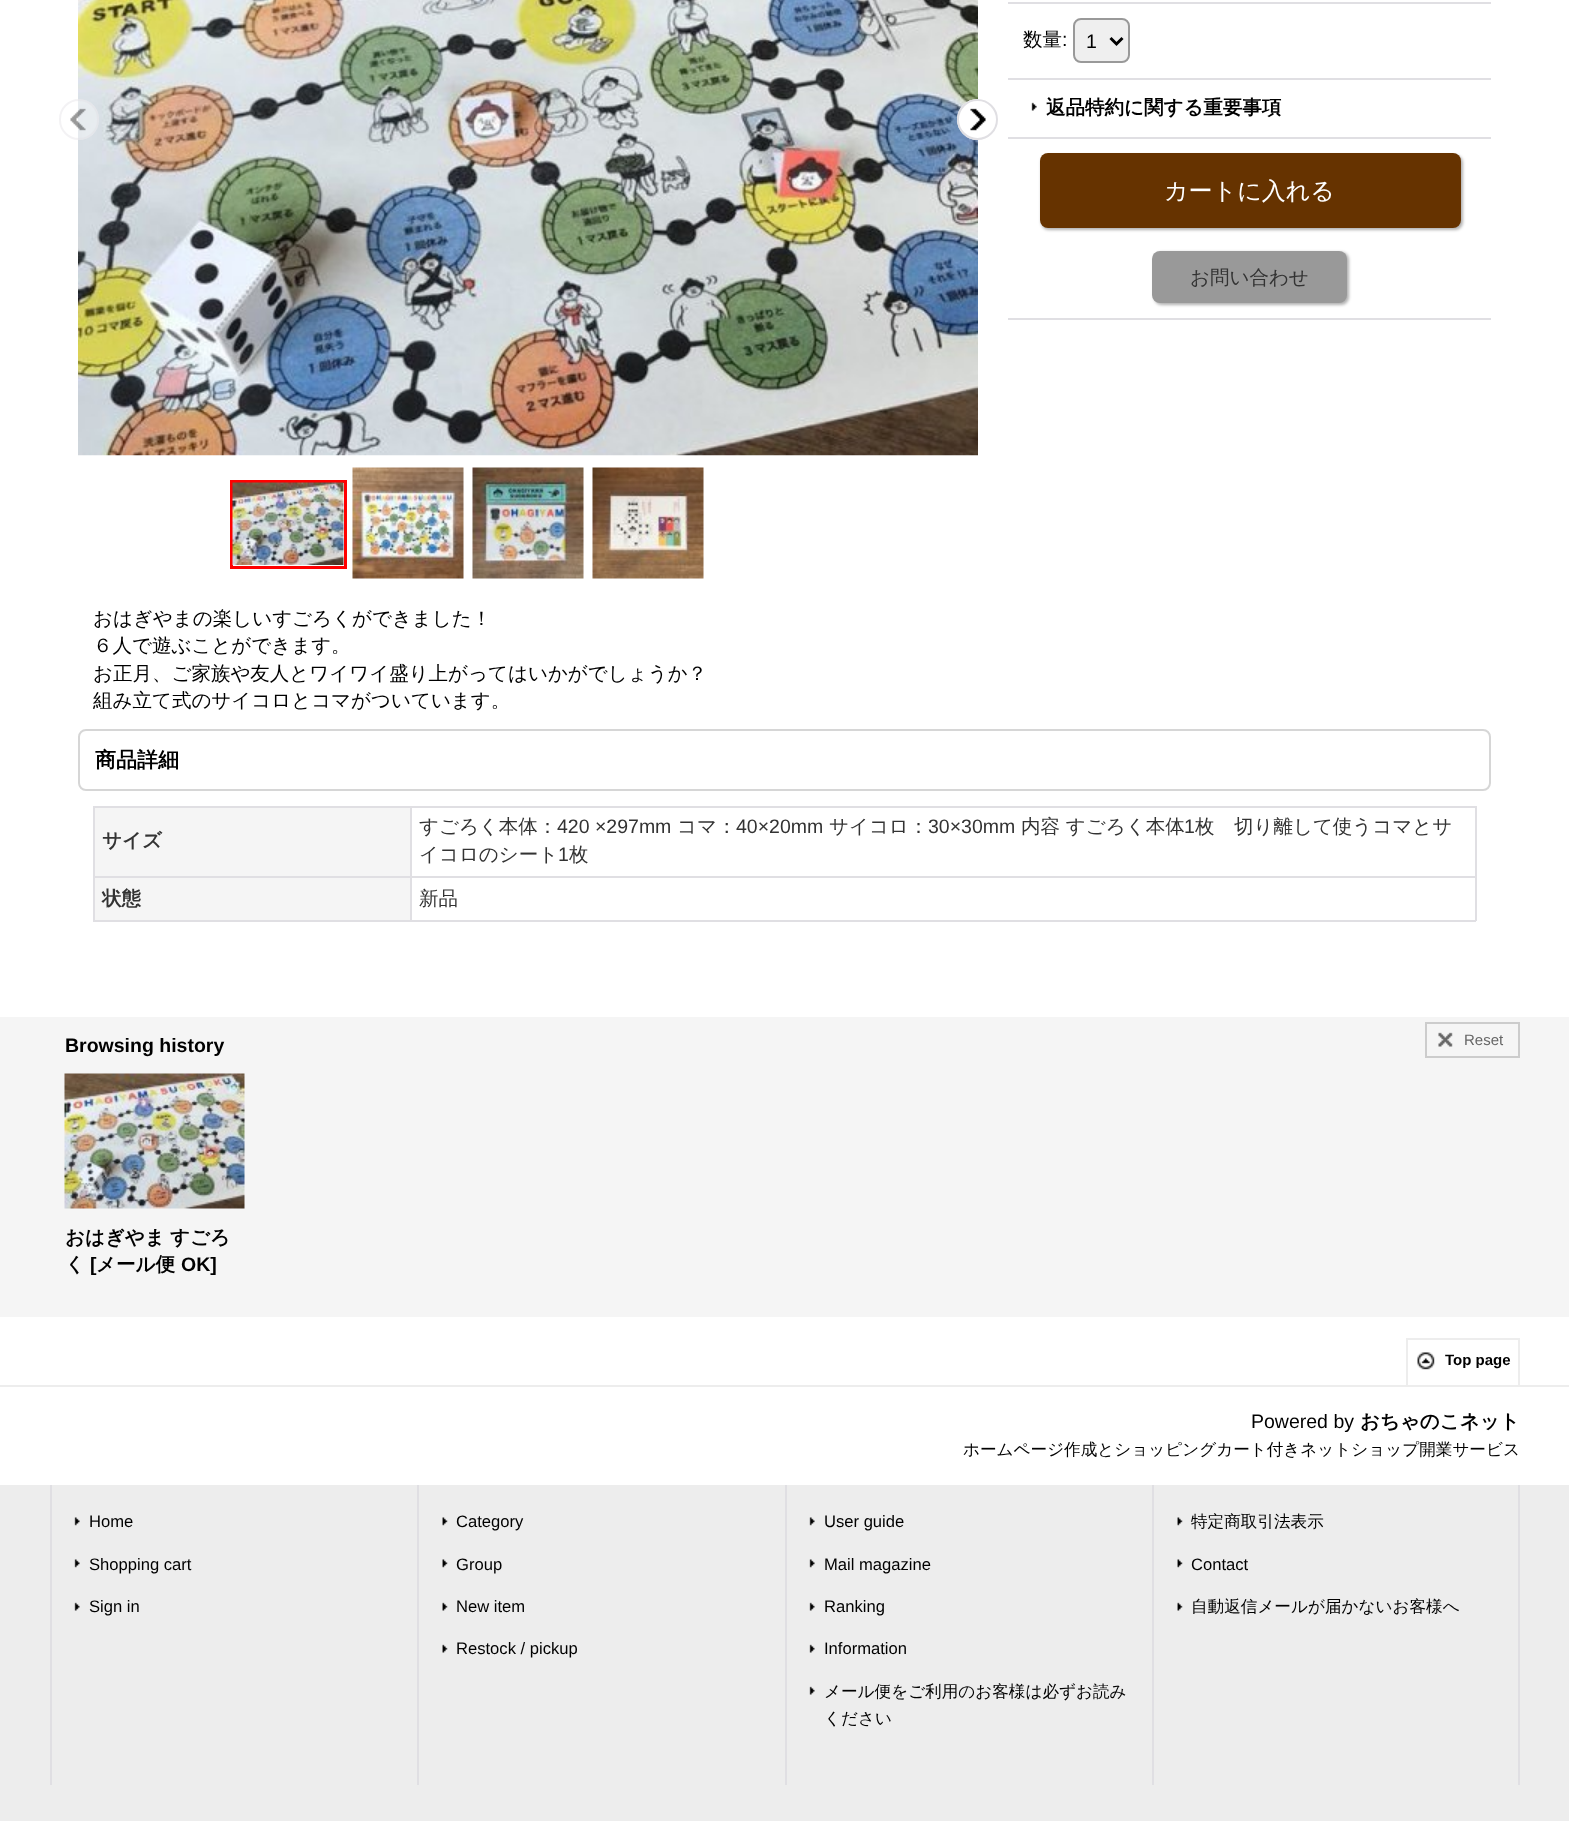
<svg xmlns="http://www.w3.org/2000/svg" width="1569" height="1821">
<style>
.a{font:500 19.5px WenQuanYi Zen Hei;fill:#000}
.b{font:19.5px Liberation Sans;fill:#000}
.c{font:bold 19.5px WenQuanYi Zen Hei;fill:#000}
.d{font:500 24px WenQuanYi Zen Hei;fill:#fff}
.e{font:500 19.5px WenQuanYi Zen Hei;fill:#333}
.f{font:bold 21px WenQuanYi Zen Hei;fill:#000}
.g{font:bold 19.5px WenQuanYi Zen Hei;fill:#333}
.h{font:19.5px Liberation Sans;fill:#333}
.i{font:15px Liberation Sans;fill:#666}
.j{font:bold 19.5px Liberation Sans;fill:#000}
.k{font:bold 15px Liberation Sans;fill:#000}
.l{font:500 16.6px WenQuanYi Zen Hei;fill:#000}
.m{font:16.6px Liberation Sans;fill:#000}
</style>
<rect width="100%" height="100%" fill="#fff"/>
<image href="1.png" x="78" y="0" width="900" height="456"/>
<rect fill="#ffffff66" x="59" y="99" width="40" height="41" rx="20"/>
<image href="2.png" x="70" y="108" width="16" height="23"/>
<rect fill="none" stroke="#e0dfe366" stroke-width="2" x="60" y="100" width="38" height="39" rx="19"/>
<circle fill="#fff" cx="977.5" cy="119.5" r="20.5"/>
<image href="3.png" x="970" y="108" width="16" height="23"/>
<circle fill="none" stroke="#e0dfe3" stroke-width="2" cx="977.5" cy="119.5" r="19.5"/>
<path fill="none" stroke="#f00" stroke-width="3" d="M231.5 481.5h114v86H231.5z"/>
<image href="4.png" x="232" y="482" width="112" height="83"/>
<image href="5.png" x="352" y="467" width="112" height="112"/>
<image href="6.png" x="472" y="467" width="112" height="112"/>
<image href="7.png" x="592" y="467" width="112" height="112"/>
<path fill="#e0dfe3" d="M1008 2h483v2H1008z"/>
<path fill="#e0dfe3" d="M1008 78h483v2H1008z"/>
<rect fill="#efefef" stroke="#999" stroke-width="2" x="1074" y="19" width="55" height="43" rx="7"/>
<path fill="none" stroke="#000" stroke-width="3" d="M1110.5 38l6 6l6-6"/>
<path fill="#e0dfe3" d="M1008 137h483v2H1008z"/>
<image href="8.png" x="1031" y="102" width="6" height="9"/>
<path fill="#e0dfe3" d="M1008 318h483v2H1008z"/>
<rect fill="#0000004d" filter="blur(1.5px)" x="1041" y="155" width="422" height="75" rx="8"/>
<rect fill="#630" x="1040" y="153" width="421" height="75" rx="8"/>
<rect fill="#0000004d" filter="blur(1.5px)" x="1154" y="252" width="195" height="53" rx="8"/>
<rect fill="#999" x="1152" y="251" width="195" height="52" rx="8"/>
<rect fill="none" stroke="#d6d6d6" stroke-width="2" x="79" y="730" width="1411" height="60" rx="7"/>
<path fill="#f5f5f5" d="M95 808h315v68H95z"/>
<path fill="#e0dfe3" d="M410 806h1066v2H410z"/>
<path fill="#e0dfe3" d="M410 876h1066v2H410z"/>
<path fill="#e0dfe3" d="M1475 876h2v45H1475z"/>
<path fill="#e0dfe3" d="M410 920h1066v2H410z"/>
<path fill="#e0dfe3" d="M410 876h2v45H410z"/>
<path fill="#e0dfe3" d="M93 876h318v2H93z"/>
<path fill="#e0dfe3" d="M410 806h2v72H410z"/>
<path fill="#e0dfe3" d="M93 806h318v2H93z"/>
<path fill="#e0dfe3" d="M93 920h318v2H93z"/>
<path fill="#e0dfe3" d="M93 876h2v45H93z"/>
<path fill="#e0dfe3" d="M93 806h2v72H93z"/>
<path fill="#e0dfe3" d="M1475 806h2v72H1475z"/>
<path fill="#f5f5f5" d="M95 878h315v42H95z"/>
<path fill="#f5f5f5" d="M0 1017h1569v300H0z"/>
<image href="9.png" x="1438" y="1032" width="15" height="15"/>
<path fill="none" stroke="#ccc" stroke-width="2" d="M1426 1023h93v34H1426z"/>
<image href="10.png" x="64" y="1073" width="181" height="136"/>
<image href="11.png" x="1417" y="1352" width="18" height="18"/>
<path fill="#ededed" d="M1406 1338h114v2H1406z"/>
<path fill="#ededed" d="M1518 1338h2v47H1518z"/>
<path fill="#ededed" d="M1406 1338h2v47H1406z"/>
<path fill="#ededed" d="M0 1385h1569v2H0z"/>
<path fill="#ededed" d="M0 1485h1569v336H0z"/>
<path fill="#e0dfe3" d="M50 1485h2v300H50z"/>
<image href="12.png" x="74" y="1517" width="6" height="9"/>
<image href="12.png" x="74" y="1559" width="6" height="9"/>
<image href="13.png" x="74" y="1602" width="6" height="9"/>
<path fill="#e0dfe3" d="M417 1485h2v300H417z"/>
<image href="14.png" x="442" y="1517" width="6" height="9"/>
<image href="14.png" x="442" y="1559" width="6" height="9"/>
<image href="15.png" x="442" y="1602" width="6" height="9"/>
<image href="15.png" x="442" y="1644" width="6" height="9"/>
<path fill="#e0dfe3" d="M785 1485h2v300H785z"/>
<image href="12.png" x="809" y="1517" width="6" height="9"/>
<image href="12.png" x="809" y="1559" width="6" height="9"/>
<image href="13.png" x="809" y="1602" width="6" height="9"/>
<image href="13.png" x="809" y="1644" width="6" height="9"/>
<image href="13.png" x="809" y="1686" width="6" height="9"/>
<path fill="#e0dfe3" d="M1518 1485h2v300H1518z"/>
<path fill="#e0dfe3" d="M1152 1485h2v300H1152z"/>
<image href="14.png" x="1177" y="1517" width="6" height="9"/>
<image href="14.png" x="1177" y="1559" width="6" height="9"/>
<image href="15.png" x="1177" y="1602" width="6" height="9"/>
<text class="a" x="1023" y="46">数量</text>
<text class="b" x="1062" y="46">:</text>
<text class="b" x="1086" y="48">1</text>
<text class="c" x="1046" y="114">返品特約に関する重要事項</text>
<text class="d" x="1164" y="199">カートに入れる</text>
<text class="e" x="1190" y="284">お問い合わせ</text>
<text class="a" x="93" y="625">おはぎやまの楽しいすごろくができました！</text>
<text class="a" x="93" y="652">６人で遊ぶことができます。</text>
<text class="a" x="93" y="680">お正月、ご家族や友人とワイワイ盛り上がってはいかがでしょうか？</text>
<text class="a" x="93" y="707">組み立て式のサイコロとコマがついています。</text>
<text class="f" x="95" y="767">商品詳細</text>
<text class="g" x="102" y="847">サイズ</text>
<text class="e" x="419" y="833">すごろく本体：</text>
<text class="h" x="557" y="833">420 ×297mm</text>
<text class="e" x="677" y="833">コマ：</text>
<text class="h" x="736" y="833">40×20mm</text>
<text class="e" x="829" y="833">サイコロ：</text>
<text class="h" x="928" y="833">30×30mm</text>
<text class="e" x="1021" y="833">内容 すごろく本体</text>
<text class="h" x="1184" y="833">1</text>
<text class="e" x="1195" y="833">枚　切り離して使うコマとサ</text>
<text class="e" x="419" y="861">イコロのシート</text>
<text class="h" x="558" y="861">1</text>
<text class="e" x="569" y="861">枚</text>
<text class="g" x="102" y="905">状態</text>
<text class="e" x="419" y="905">新品</text>
<text class="i" x="1464" y="1045">Reset</text>
<text class="c" x="65" y="1244">おはぎやま</text>
<text class="c" x="170" y="1244">すごろ</text>
<text class="c" x="65" y="1271">く</text>
<text class="j" x="90" y="1271">[</text>
<text class="c" x="96" y="1271">メール便</text>
<text class="j" x="181" y="1271">OK]</text>
<text class="j" x="65" y="1052">Browsing history</text>
<text class="k" x="1445" y="1365">Top page</text>
<text class="b" x="1251" y="1428">Powered by</text>
<text class="c" x="1360" y="1428">おちゃのこネット</text>
<text class="l" x="963" y="1455">ホームページ作成とショッピングカート付きネットショップ開業サービス</text>
<text class="m" x="89" y="1527">Home</text>
<text class="m" x="89" y="1570">Shopping cart</text>
<text class="m" x="89" y="1612">Sign in</text>
<text class="m" x="456" y="1527">Category</text>
<text class="m" x="456" y="1570">Group</text>
<text class="m" x="456" y="1612">New item</text>
<text class="m" x="456" y="1654">Restock / pickup</text>
<text class="m" x="824" y="1527">User guide</text>
<text class="m" x="824" y="1570">Mail magazine</text>
<text class="m" x="824" y="1612">Ranking</text>
<text class="m" x="824" y="1654">Information</text>
<text class="l" x="824" y="1697">メール便をご利用のお客様は必ずお読み</text>
<text class="l" x="824" y="1724">ください</text>
<text class="l" x="1191" y="1527">特定商取引法表示</text>
<text class="m" x="1191" y="1570">Contact</text>
<text class="l" x="1191" y="1612">自動返信メールが届かないお客様へ</text>
</svg>
